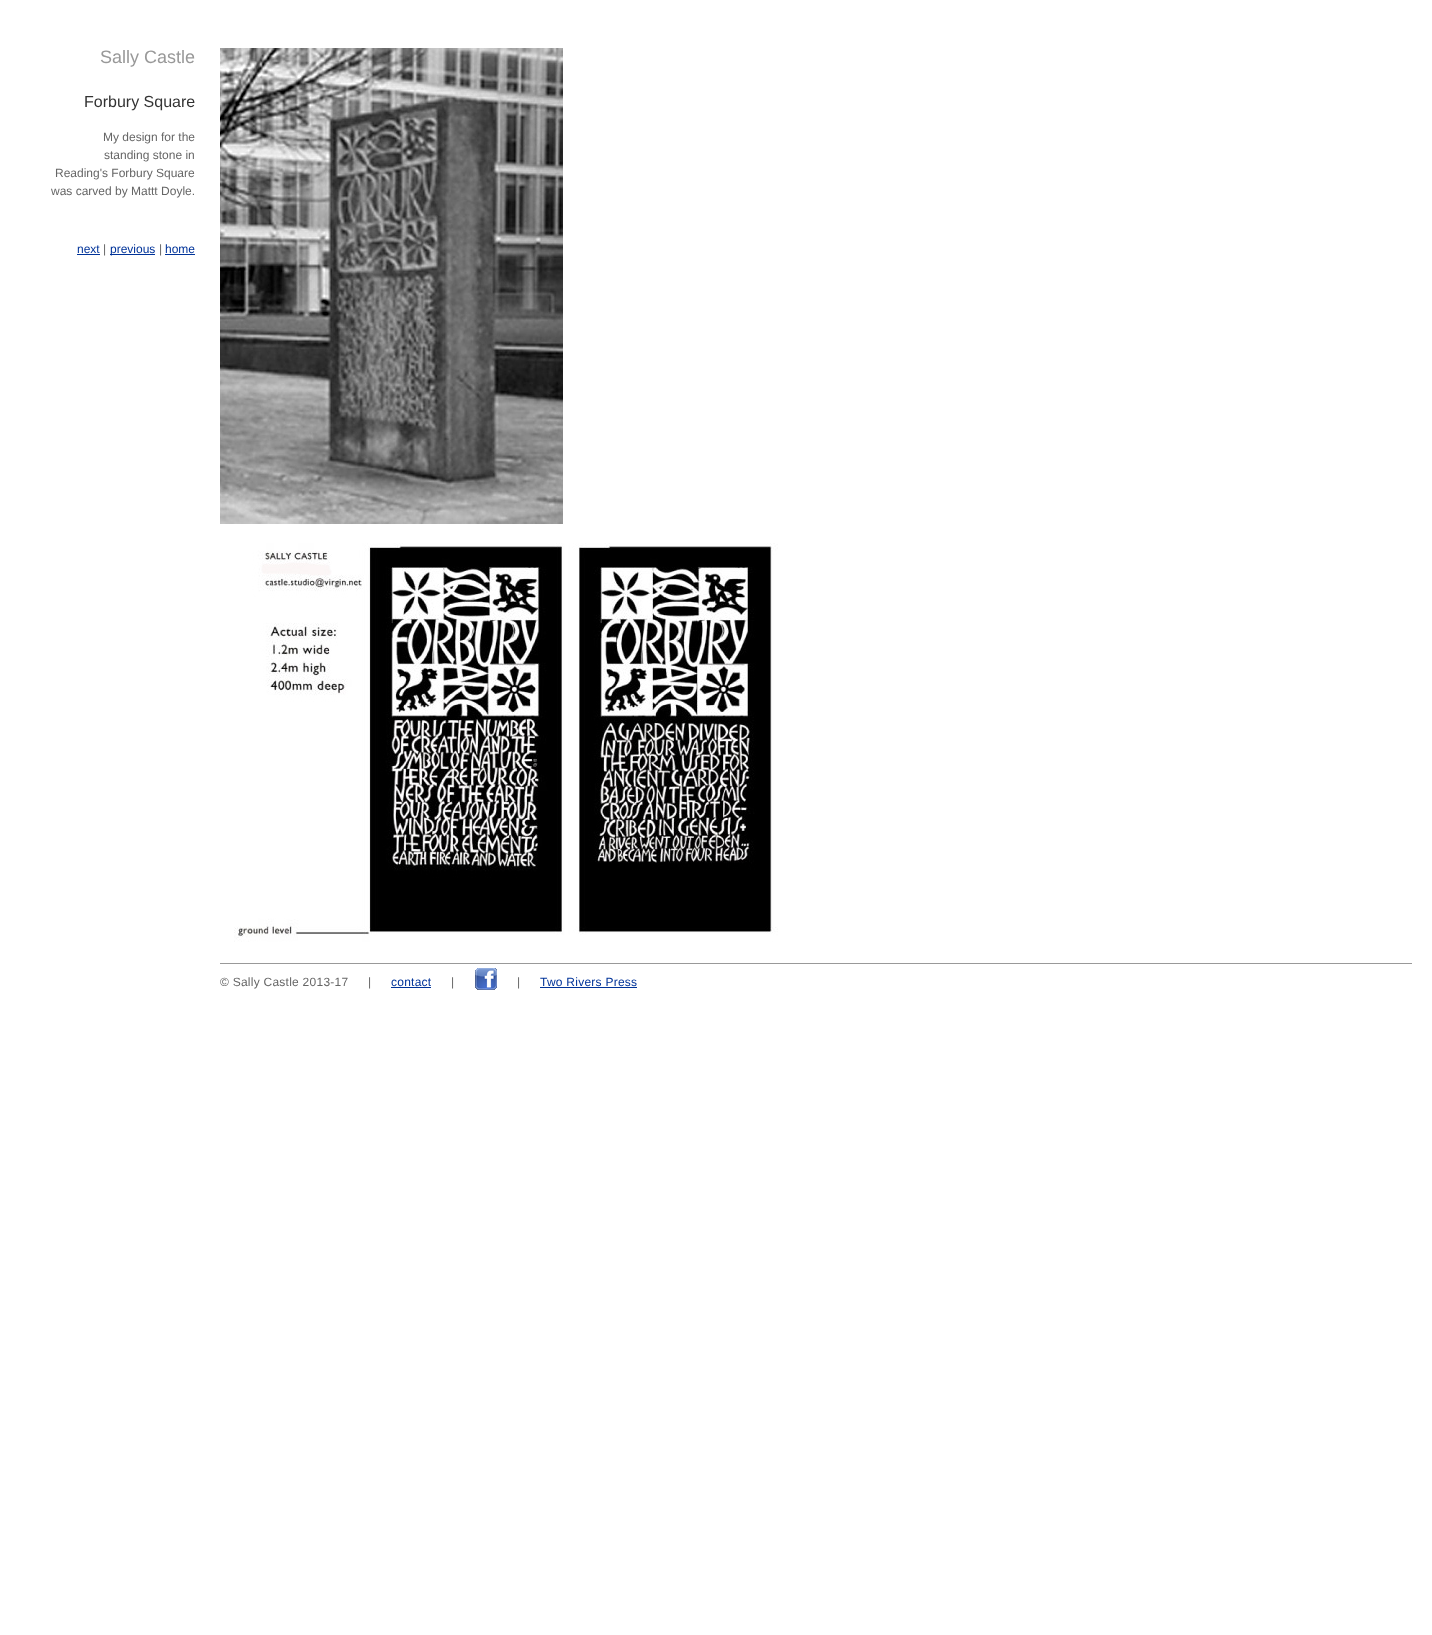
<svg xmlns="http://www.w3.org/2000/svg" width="1432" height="1635">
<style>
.a{font:18px Liberation Sans;fill:#999}
.b{font:16px Liberation Sans;fill:#333}
.c{font:12px Liberation Sans;fill:#666}
.d{font:12px Liberation Sans;fill:#039}
.e{font:12px Liberation Sans;letter-spacing:0.25px;fill:#666}
.f{font:12px Liberation Sans;letter-spacing:0.25px;fill:#039}
</style>
<rect width="100%" height="100%" fill="#fff"/>
<image href="1.png" x="220" y="48" width="343" height="476"/>
<image href="2.png" x="234" y="543" width="544" height="399"/>
<path fill="#039" d="M77 254h23v1H77z"/>
<path fill="#039" d="M110 254h45v1H110z"/>
<path fill="#039" d="M165 254h30v1H165z"/>
<path fill="#999" d="M220 963h1192v1H220z"/>
<path fill="#039" d="M391 987h40v1H391z"/>
<image href="3.png" x="475" y="968" width="22" height="22"/>
<path fill="#039" d="M540 987h97v1H540z"/>
<text class="a" x="100" y="63">Sally Castle</text>
<text class="b" x="84" y="107">Forbury Square</text>
<text class="c" x="103" y="141">My design for the</text>
<text class="c" x="104" y="159">standing stone in</text>
<text class="c" x="55" y="177">Reading's Forbury Square</text>
<text class="c" x="51" y="195">was carved by Mattt Doyle.</text>
<text class="d" x="77" y="253">next</text>
<text class="c" x="103" y="253">|</text>
<text class="d" x="110" y="253">previous</text>
<text class="c" x="159" y="253">|</text>
<text class="d" x="165" y="253">home</text>
<text class="e" x="220" y="986">© Sally Castle 2013-17</text>
<text class="e" x="368" y="986">|</text>
<text class="f" x="391" y="986">contact</text>
<text class="e" x="451" y="986">|</text>
<text class="e" x="517" y="986">|</text>
<text class="f" x="540" y="986">Two Rivers Press</text>
</svg>
